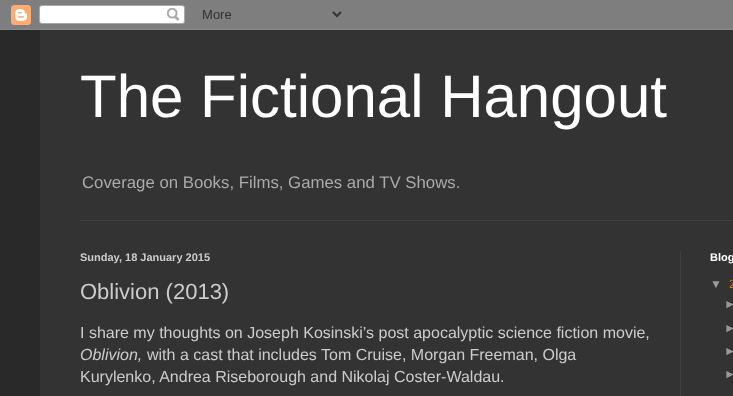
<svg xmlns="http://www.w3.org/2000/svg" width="733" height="396">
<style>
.a{font:60px Liberation Sans;fill:#fff}
.b{font:16.8px Liberation Sans;fill:#aaa}
.c{font:bold 11px Liberation Sans;fill:#ccc}
.d{font:22px Liberation Sans;fill:#ccc}
.e{font:16px Liberation Sans;fill:#ccc}
.f{font:italic 16px Liberation Sans;fill:#ccc}
.g{font:bold 11px Liberation Sans;fill:#fff}
.h{font:12px Liberation Sans;fill:#999}
.i{font:12px Liberation Sans;fill:#d70}
</style>
<rect width="100%" height="100%" fill="#292929"/>
<image href="1.png" x="0" y="0" width="733" height="30"/>
<path fill="#333" d="M40 30h693v366H40z"/>
<path fill="#404040" d="M80 220h653v1H80z"/>
<path fill="#404040" d="M680 251h1v145H680z"/>
<text class="a" x="80" y="117">The Fictional Hangout</text>
<text class="b" x="82" y="188">Coverage on Books, Films, Games and TV Shows.</text>
<text class="c" x="80" y="261">Sunday, 18 January 2015</text>
<text class="d" x="80" y="299">Oblivion (2013)</text>
<text class="e" x="80" y="338">I share my thoughts on Joseph Kosinski’s post apocalyptic science fiction movie,</text>
<text class="f" x="80" y="360">Oblivion,</text>
<text class="e" x="147" y="360">with a cast that includes Tom Cruise, Morgan Freeman, Olga</text>
<text class="e" x="80" y="382">Kurylenko, Andrea Riseborough and Nikolaj Coster-Waldau.</text>
<text class="g" x="710" y="261">Blog</text>
<text class="h" x="710" y="288">▼</text>
<text class="i" x="729" y="288">2</text>
<text class="h" x="724" y="308">►</text>
<text class="h" x="724" y="332">►</text>
<text class="h" x="724" y="355">►</text>
<text class="h" x="724" y="378">►</text>
</svg>
